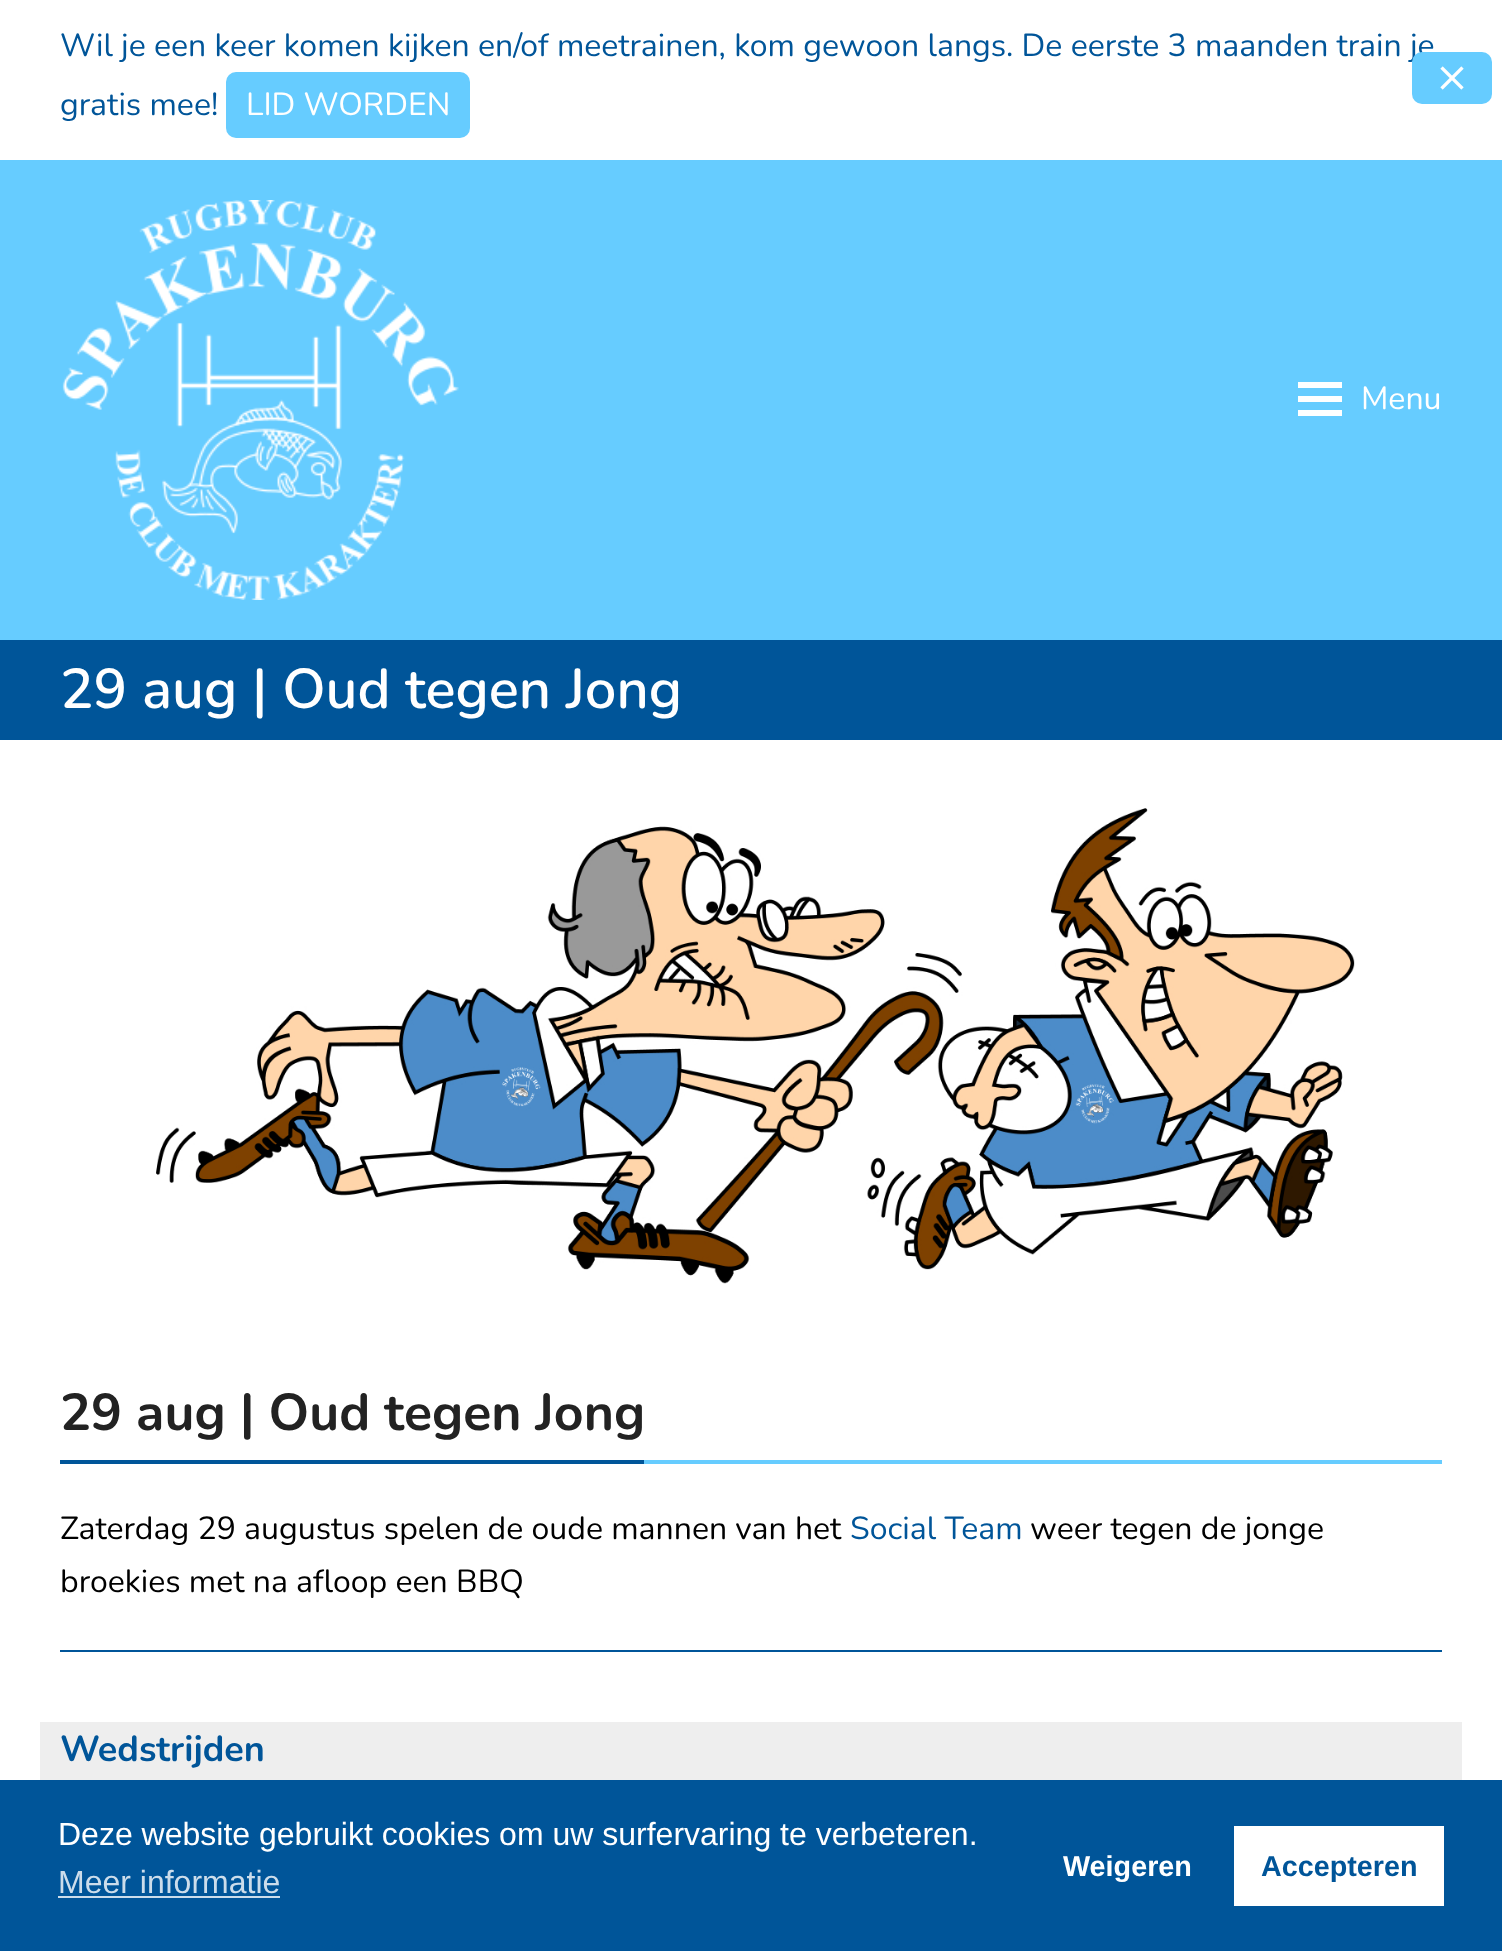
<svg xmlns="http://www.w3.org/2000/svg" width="1502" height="1951">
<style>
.a{font:32px Nunito;fill:#059}
.b{font:32px Nunito;fill:#fff}
.c{font:600 56px Nunito;fill:#fff}
.d{font:bold 51.75px Nunito;fill:#222}
.e{font:32px Nunito;fill:#000}
.f{font:bold 36px Nunito;fill:#059}
.g{font:32px Liberation Sans;fill:#fff}
.h{font:32px Liberation Sans;fill:#ccddeb}
.i{font:bold 28.75px Liberation Sans;fill:#fff}
.j{font:bold 28.75px Liberation Sans;fill:#059}
</style>
<rect width="100%" height="100%" fill="#fff"/>
<rect fill="#6cf" x="226" y="72" width="244" height="66" rx="10"/>
<path fill="#6cf" d="M0 160h1502v480H0z"/>
<image href="2.png" x="62" y="200" width="397" height="400"/>
<path fill="#fff" d="M1298 396h44v6H1298z"/>
<path fill="#fff" d="M1298 382h44v6H1298z"/>
<path fill="#fff" d="M1298 410h44v6H1298z"/>
<path fill="#059" d="M0 640h1502v100H0z"/>
<image href="3.png" x="156" y="808" width="1199" height="476"/>
<path fill="#6cf" d="M644 1460h798v4H644z"/>
<path fill="#059" d="M60 1460h584v4H60z"/>
<path fill="#059" d="M60 1650h1382v2H60z"/>
<path fill="#eee" d="M40 1722h1422v58H40z"/>
<path fill="#059" d="M0 1780h1502v171H0z"/>
<path fill="#ccddeb" d="M58 1896h222v2H58z"/>
<path fill="#fff" d="M1234 1826h210v80H1234z"/>
<text class="a" x="60" y="56">Wil je een keer komen kijken en/of meetrainen, kom gewoon langs. De eerste 3 maanden train je</text>
<text class="a" x="60" y="115">gratis mee!</text>
<text class="b" x="246" y="115">LID WORDEN</text>
<rect fill="#6cf" x="1412" y="52" width="80" height="52" rx="10"/>
<image href="1.png" x="1440" y="66" width="24" height="24"/>
<text class="b" x="1361" y="409">Menu</text>
<text class="c" x="60" y="708">29 aug | Oud tegen Jong</text>
<text class="d" x="60" y="1430">29 aug | Oud tegen Jong</text>
<text class="e" x="60" y="1539">Zaterdag 29 augustus spelen de oude mannen van het</text>
<text class="a" x="850" y="1539">Social Team</text>
<text class="e" x="1030" y="1539">weer tegen de jonge</text>
<text class="e" x="60" y="1592">broekies met na afloop een BBQ</text>
<text class="f" x="60" y="1761">Wedstrijden</text>
<text class="g" x="58" y="1845">Deze website gebruikt cookies om uw surfervaring te verbeteren.</text>
<text class="h" x="58" y="1893">Meer informatie</text>
<text class="i" x="1063" y="1876">Weigeren</text>
<text class="j" x="1261" y="1876">Accepteren</text>
</svg>
